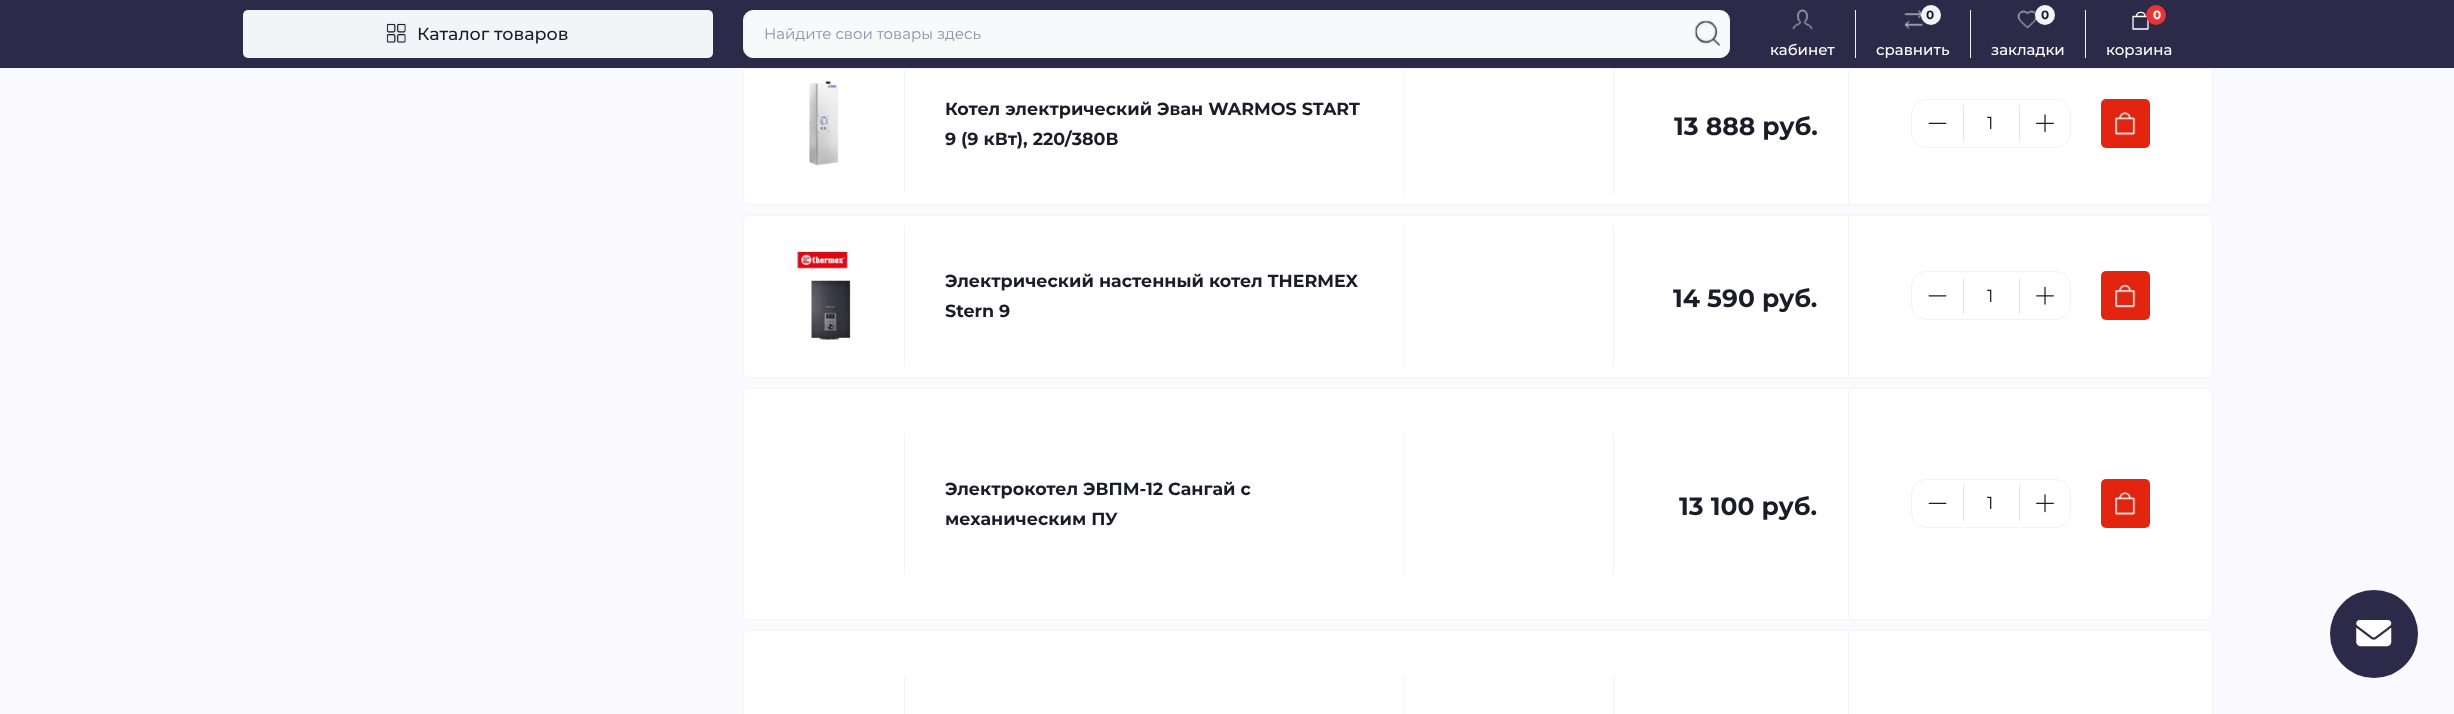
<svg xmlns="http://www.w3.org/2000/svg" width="2454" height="714">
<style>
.a{font:500 17.5px Montserrat;fill:#1c1c28}
.b{font:15px Montserrat;fill:#8f90a6}
.c{font:500 15px Montserrat;fill:#fff}
.d{font:bold 12px Montserrat;fill:#1c1c28}
.e{font:bold 12px Montserrat;fill:#fff}
.f{font:bold 17.5px Montserrat;fill:#1c1c28}
.g{font:bold 25px Montserrat;fill:#1c1c28}
.h{font:17.5px Montserrat;fill:#1c1c28}
</style>
<rect width="100%" height="100%" fill="#fafafe"/>
<rect fill="#fff" stroke="#f2f4f8" x="743.5" y="43.5" width="1469" height="161" rx="4.5"/>
<path fill="#2d2948" d="M0 0h2454v68H0z"/>
<path fill="#f2f4f8" d="M0 68h2454v1H0z"/>
<rect fill="#f2f4f8" x="243" y="10" width="470" height="48" rx="5"/>
<image href="1.png" x="385" y="22" width="22" height="22"/>
<rect fill="#f8f9fa" stroke="#f2f4f8" x="743.5" y="10.5" width="986" height="47" rx="9.5"/>
<image href="2.png" x="1694" y="20" width="26" height="26"/>
<image href="3.png" x="1792" y="9" width="21" height="21"/>
<path fill="#f2f2f5" d="M1855 10h1v48H1855z"/>
<image href="4.png" x="1904" y="10" width="19" height="20"/>
<circle fill="#f2f4f8" cx="1931" cy="15" r="10"/>
<path fill="#f2f2f5" d="M1970 10h1v48H1970z"/>
<image href="5.png" x="2017" y="10" width="20" height="19"/>
<circle fill="#f2f4f8" cx="2045" cy="15" r="10"/>
<path fill="#f2f2f5" d="M2085 10h1v48H2085z"/>
<path fill="none" stroke="#fff" stroke-width="1.3" stroke-linecap="round" stroke-linejoin="round" d="M2133 16.5h15v12.5h-15zm3.5 0c0-5.5 8.5-5.5 8.5 0"/>
<circle fill="#e53535" cx="2156" cy="15" r="10"/>
<image href="6.png" x="809" y="80" width="30" height="86"/>
<path fill="#f2f4f8" d="M1403 69h1v125H1403z"/>
<path fill="#f2f4f8" d="M904 69h1v125H904z"/>
<path fill="#f2f4f8" d="M1613 69h1v125H1613z"/>
<path fill="#f2f4f8" d="M1848 69h1v135H1848z"/>
<rect fill="none" stroke="#f2f2f5" x="1911.5" y="99.5" width="159" height="48" rx="14.5"/>
<image href="7.png" x="1928" y="122" width="19" height="2"/>
<path fill="#e4e4eb" d="M2019 105h1v36H2019z"/>
<path fill="#e4e4eb" d="M1963 105h1v36H1963z"/>
<image href="8.png" x="2036" y="114" width="18" height="19"/>
<rect fill="#e3250f" x="2101" y="99" width="49" height="49" rx="5"/>
<image href="9.png" x="2113" y="111" width="24" height="26"/>
<rect fill="#fff" stroke="#f2f4f8" x="743.5" y="215.5" width="1469" height="162" rx="4.5"/>
<image href="10.png" x="795" y="246" width="64" height="95"/>
<path fill="#f2f4f8" d="M1403 226h1v140H1403z"/>
<path fill="#f2f4f8" d="M904 226h1v140H904z"/>
<path fill="#f2f4f8" d="M1613 226h1v140H1613z"/>
<path fill="#f2f4f8" d="M1848 216h1v160H1848z"/>
<rect fill="none" stroke="#f2f2f5" x="1911.5" y="271.5" width="159" height="48" rx="14.5"/>
<image href="11.png" x="1928" y="295" width="19" height="2"/>
<path fill="#e4e4eb" d="M2019 278h1v36H2019z"/>
<path fill="#e4e4eb" d="M1963 278h1v36H1963z"/>
<image href="12.png" x="2036" y="286" width="18" height="19"/>
<rect fill="#e3250f" x="2101" y="271" width="49" height="49" rx="5"/>
<image href="13.png" x="2113" y="283" width="24" height="26"/>
<rect fill="#fff" stroke="#f2f4f8" x="743.5" y="388.5" width="1469" height="231" rx="4.5"/>
<path fill="#f2f4f8" d="M1403 434h1v140H1403z"/>
<path fill="#f2f4f8" d="M904 434h1v140H904z"/>
<path fill="#f2f4f8" d="M1613 434h1v140H1613z"/>
<path fill="#f2f4f8" d="M1848 389h1v230H1848z"/>
<rect fill="none" stroke="#f2f2f5" x="1911.5" y="479.5" width="159" height="48" rx="14.5"/>
<image href="7.png" x="1928" y="502" width="19" height="2"/>
<path fill="#e4e4eb" d="M2019 485h1v36H2019z"/>
<path fill="#e4e4eb" d="M1963 485h1v36H1963z"/>
<image href="8.png" x="2036" y="494" width="18" height="19"/>
<rect fill="#e3250f" x="2101" y="479" width="49" height="49" rx="5"/>
<image href="9.png" x="2113" y="491" width="24" height="26"/>
<rect fill="#fff" stroke="#f2f4f8" x="743.5" y="630.5" width="1469" height="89" rx="4.5"/>
<path fill="#f2f4f8" d="M1403 676h1v38H1403z"/>
<path fill="#f2f4f8" d="M904 676h1v38H904z"/>
<path fill="#f2f4f8" d="M1613 676h1v38H1613z"/>
<path fill="#f2f4f8" d="M1848 631h1v83H1848z"/>
<circle fill="#2d2948" cx="2374" cy="634" r="44"/>
<image href="14.png" x="2356" y="620" width="36" height="27"/>
<text class="a" x="417" y="40">Каталог товаров</text>
<text class="b" x="764" y="39">Найдите свои товары здесь</text>
<text class="c" x="1770" y="55">кабинет</text>
<text class="d" x="1926" y="19">0</text>
<text class="c" x="1876" y="55">сравнить</text>
<text class="d" x="2041" y="19">0</text>
<text class="c" x="1991" y="55">закладки</text>
<text class="e" x="2153" y="19">0</text>
<text class="c" x="2106" y="55">корзина</text>
<text class="f" x="945" y="115">Котел электрический Эван WARMOS START</text>
<text class="f" x="945" y="145">9 (9 кВт), 220/380В</text>
<text class="g" x="1674" y="135">13 888 руб.</text>
<text class="h" x="1987" y="129">1</text>
<text class="f" x="945" y="287">Электрический настенный котел THERMEX</text>
<text class="f" x="945" y="317">Stern 9</text>
<text class="g" x="1673" y="307">14 590 руб.</text>
<text class="h" x="1987" y="302">1</text>
<text class="f" x="945" y="495">Электрокотел ЭВПМ-12 Сангай с</text>
<text class="f" x="945" y="525">механическим ПУ</text>
<text class="g" x="1679" y="515">13 100 руб.</text>
<text class="h" x="1987" y="509">1</text>
</svg>
